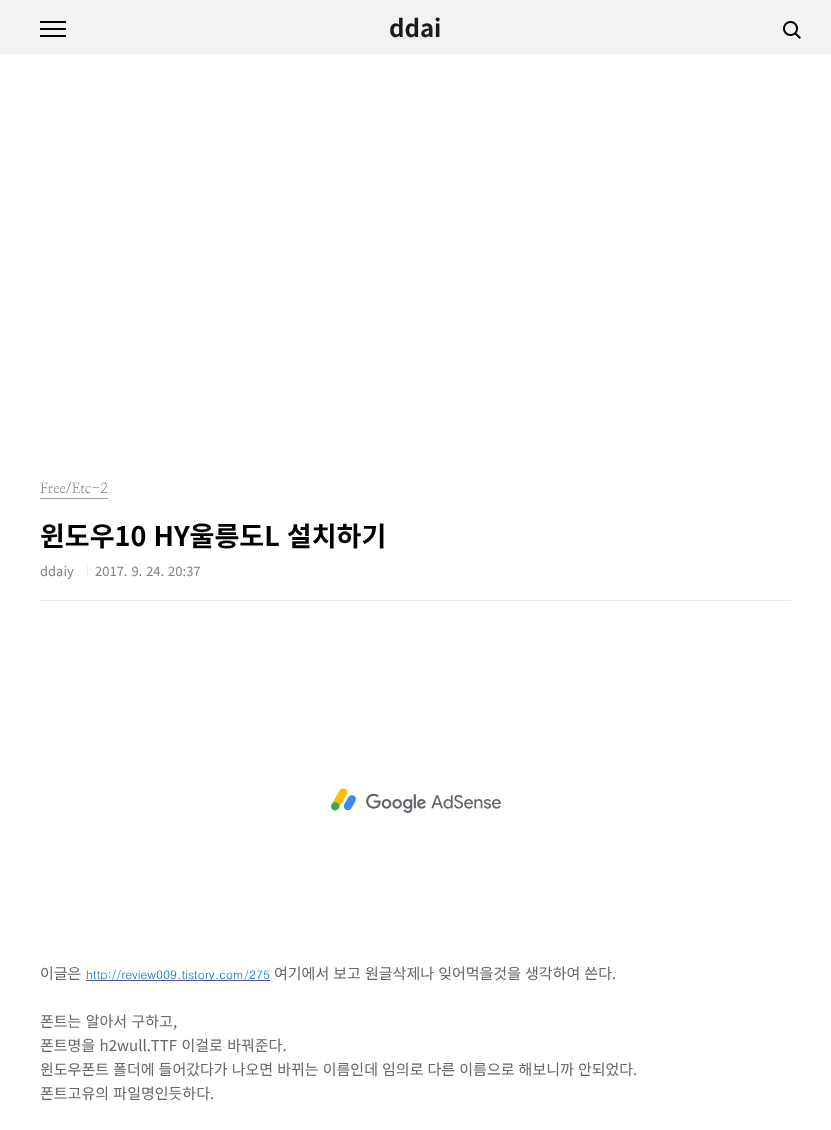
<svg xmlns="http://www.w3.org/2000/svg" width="831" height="1130">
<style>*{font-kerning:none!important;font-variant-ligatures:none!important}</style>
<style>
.a{font:bold 24px Noto Sans KR;fill:#1a1a1a}
.b{font:14px NanumMyeongjo;fill:#808080}
.c{font:bold 27px Noto Sans KR;fill:#000}
.d{font:13px Noto Sans KR;fill:#808080}
.e{font:15px Noto Sans KR;fill:#666}
.f{font:12px Dotum;fill:#06c}
</style>
<rect width="100%" height="100%" fill="#fff"/>
<path fill="#f2f2f2" d="M0 0h831v54H0z"/>
<path fill="#000" d="M40 21h26v2H40z"/>
<path fill="#000" d="M40 28h26v2H40z"/>
<path fill="#000" d="M40 35h26v2H40z"/>
<image href="1.png" x="783" y="21" width="18" height="18"/>
<path fill="#ebebeb" d="M40 600h751v1H40z"/>
<path fill="#a3a3a3" d="M40 498h68v1H40z"/>
<path fill="#ebebeb" d="M87 566h1v10H87z"/>
<image href="2.png" x="331" y="788" width="170" height="25"/>
<path fill="#5a5194" d="M86 980h184v1H86z"/>
<text class="a" x="389" y="37">ddai</text>
<text class="b" x="40" y="493">Free/Etc-2</text>
<text class="c" x="40" y="546" word-spacing="1">윈도우10 HY울릉도L 설치하기</text>
<text class="d" x="40" y="576">ddaiy</text>
<text class="d" x="95" y="576" word-spacing="1">2017. 9. 24. 20:37</text>
<text class="e" x="40" y="979">이글은</text>
<text class="f" x="86" y="979">http://review009.tistory.com/275</text>
<text class="e" x="274" y="979" word-spacing="0.75">여기에서 보고 원글삭제나 잊어먹을것을 생각하여 쓴다.</text>
<text class="e" x="40" y="1027" word-spacing="1">폰트는 알아서 구하고,</text>
<text class="e" x="40" y="1051" word-spacing="1">폰트명을 h2wull.TTF 이걸로 바꿔준다.</text>
<text class="e" x="40" y="1075" word-spacing="0.75">윈도우폰트 폴더에 들어갔다가 나오면 바뀌는 이름인데 임의로 다른 이름으로 해보니까 안되었다.</text>
<text class="e" x="40" y="1099" word-spacing="1">폰트고유의 파일명인듯하다.</text>
</svg>
